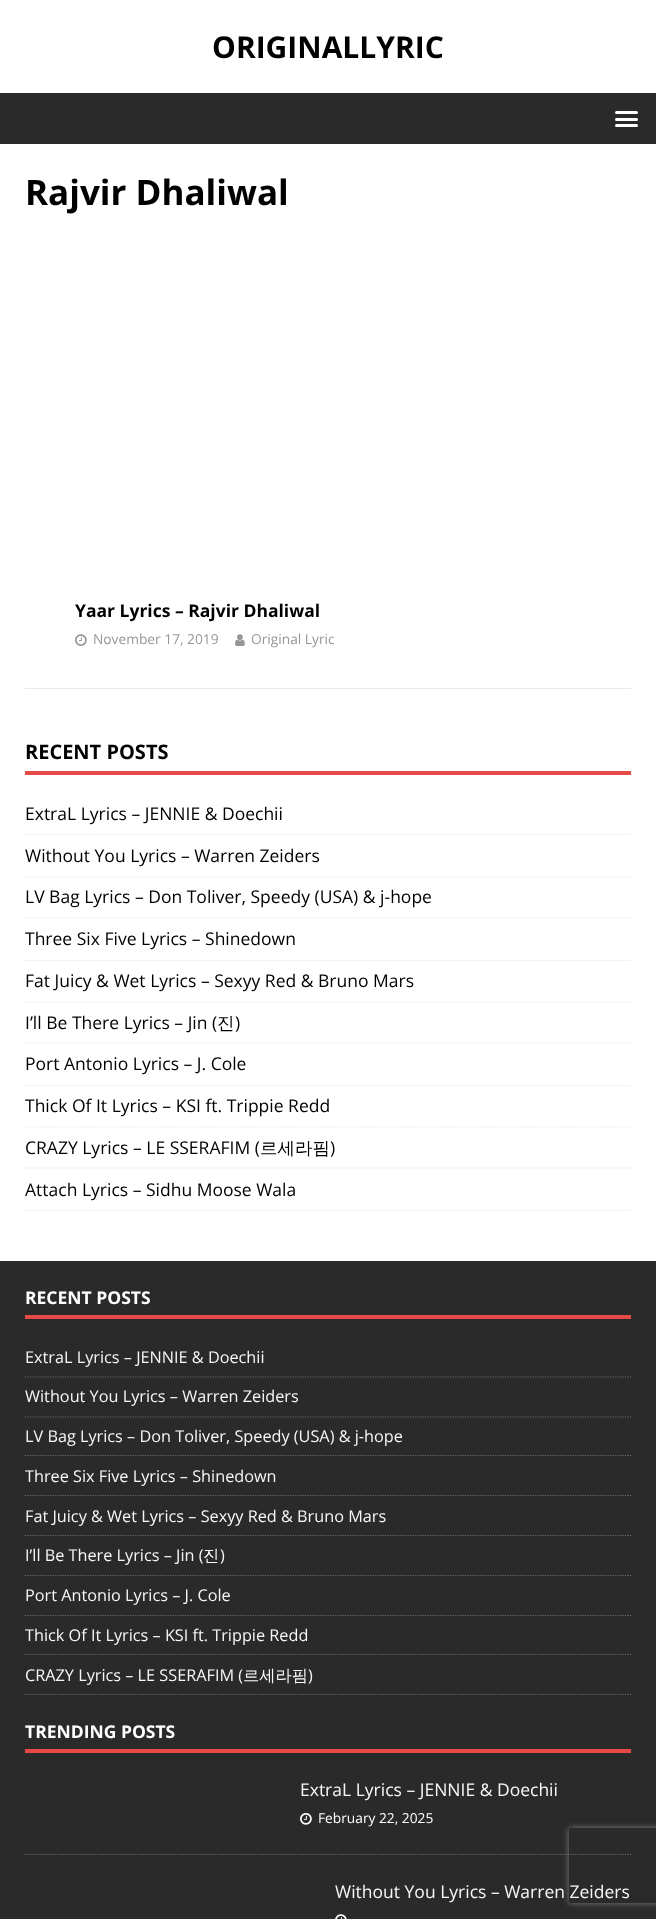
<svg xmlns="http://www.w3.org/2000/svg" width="656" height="1919">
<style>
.a{font:bold 30px Open Sans;fill:#000}
.b{font:bold 35px Open Sans;fill:#000}
.c{font:bold 17.5px Open Sans;fill:#000}
.d{font:13.75px Open Sans;fill:#979797}
.e{font:bold 20px Open Sans;fill:#000}
.f{font:17.5px Open Sans;fill:#000}
.g{font:500 17.5px WenQuanYi Zen Hei;fill:#000}
.h{font:bold 17.5px Open Sans;fill:#fff}
.i{font:16.25px Open Sans;fill:#f7f7f7}
.j{font:500 16.25px WenQuanYi Zen Hei;fill:#f7f7f7}
.k{font:17.5px Open Sans;fill:#f7f7f7}
.l{font:13.75px Open Sans;fill:#fff}
</style>
<defs>
<clipPath id="clip1"><path d="M25 739h606v472H25z"/></clipPath>
<clipPath id="clip2"><path d="M25 1286h606v409H25z"/></clipPath>
<clipPath id="clip3"><path d="M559 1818h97v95h-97zm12.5 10h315c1.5 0 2.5 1 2.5 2.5v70c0 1.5-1 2.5-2.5 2.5h-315c-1.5 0-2.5-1-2.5-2.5v-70c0-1.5 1-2.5 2.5-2.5z" clip-rule="evenodd"/></clipPath>
</defs>
<rect width="100%" height="100%" fill="#fff"/>
<path fill="#2a2a2a" d="M0 93h656v51H0z"/>
<rect fill="#fff" x="615" y="111" width="23" height="3" rx="1.5"/>
<rect fill="#fff" x="615" y="118" width="23" height="3" rx="1.5"/>
<rect fill="#fff" x="615" y="124" width="23" height="3" rx="1.5"/>
<path fill="#ebebeb" d="M25 688h606v1H25z"/>
<image href="1.png" x="75" y="634" width="12" height="12"/>
<image href="2.png" x="235" y="634" width="10" height="12"/>
<path fill="#e64946" d="M25 771h606v4H25z"/>
<path fill="none" stroke="#e5e5e5" stroke-width="1.2" stroke-dasharray="1.25 1.25" d="M25 834.5h606"/>
<path fill="none" stroke="#e5e5e5" stroke-width="1.2" stroke-dasharray="1.25 1.25" d="M25 877h606"/>
<path fill="none" stroke="#e5e5e5" stroke-width="1.2" stroke-dasharray="1.25 1.25" d="M25 918h606"/>
<path fill="none" stroke="#e5e5e5" stroke-width="1.2" stroke-dasharray="1.25 1.25" d="M25 960.5h606"/>
<path fill="none" stroke="#e5e5e5" stroke-width="1.2" stroke-dasharray="1.25 1.25" d="M25 1002h606"/>
<path fill="none" stroke="#e5e5e5" stroke-width="1.2" stroke-dasharray="1.25 1.25" d="M25 1043h606"/>
<path fill="none" stroke="#e5e5e5" stroke-width="1.2" stroke-dasharray="1.25 1.25" d="M25 1085.5h606"/>
<path fill="none" stroke="#e5e5e5" stroke-width="1.2" stroke-dasharray="1.25 1.25" d="M25 1127h606"/>
<path fill="none" stroke="#e5e5e5" stroke-width="1.2" stroke-dasharray="1.25 1.25" d="M25 1168h606"/>
<g clip-path="url(#clip1)">
<path fill="none" stroke="#e5e5e5" stroke-width="1.2" stroke-dasharray="1.25 1.25" d="M25 1210.5h606"/>
</g>
<path fill="#2a2a2a" d="M0 1261h656v658H0z"/>
<path fill="#e64946" d="M25 1315h606v4H25z"/>
<path fill="none" stroke="#6a6a6a" stroke-width="1.2" stroke-dasharray="1.25 1.25" d="M25 1377h606"/>
<path fill="none" stroke="#6a6a6a" stroke-width="1.2" stroke-dasharray="1.25 1.25" d="M25 1417h606"/>
<path fill="none" stroke="#6a6a6a" stroke-width="1.2" stroke-dasharray="1.25 1.25" d="M25 1455.5h606"/>
<path fill="none" stroke="#6a6a6a" stroke-width="1.2" stroke-dasharray="1.25 1.25" d="M25 1495.5h606"/>
<path fill="none" stroke="#6a6a6a" stroke-width="1.2" stroke-dasharray="1.25 1.25" d="M25 1535.5h606"/>
<path fill="none" stroke="#6a6a6a" stroke-width="1.2" stroke-dasharray="1.25 1.25" d="M25 1575.5h606"/>
<path fill="none" stroke="#6a6a6a" stroke-width="1.2" stroke-dasharray="1.25 1.25" d="M25 1615.5h606"/>
<path fill="none" stroke="#6a6a6a" stroke-width="1.2" stroke-dasharray="1.25 1.25" d="M25 1654.5h606"/>
<g clip-path="url(#clip2)">
<path fill="none" stroke="#6a6a6a" stroke-width="1.2" stroke-dasharray="1.25 1.25" d="M25 1694.5h606"/>
</g>
<path fill="#e64946" d="M25 1749h606v4H25z"/>
<path fill="none" stroke="#6a6a6a" stroke-width="1.2" stroke-dasharray="1.25 1.25" d="M25 1854.5h606"/>
<image href="3.png" x="300" y="1813" width="12" height="12"/>
<image href="4.png" x="335" y="1914" width="12" height="5"/>
<g clip-path="url(#clip3)">
<rect fill="#808080" filter="blur(3px)" x="569" y="1828" width="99" height="75" rx="2.5"/>
</g>
<text class="a" x="212" y="58">ORIGINALLYRIC</text>
<text class="b" x="25" y="205">Rajvir Dhaliwal</text>
<text class="c" x="75" y="617">Yaar Lyrics – Rajvir Dhaliwal</text>
<text class="d" x="93" y="644">November 17, 2019</text>
<text class="d" x="251" y="644">Original Lyric</text>
<text class="e" x="25" y="759">RECENT POSTS</text>
<text class="f" x="25" y="820">ExtraL Lyrics – JENNIE &amp; Doechii</text>
<text class="f" x="25" y="862">Without You Lyrics – Warren Zeiders</text>
<text class="f" x="25" y="903">LV Bag Lyrics – Don Toliver, Speedy (USA) &amp; j-hope</text>
<text class="f" x="25" y="945">Three Six Five Lyrics – Shinedown</text>
<text class="f" x="25" y="987">Fat Juicy &amp; Wet Lyrics – Sexyy Red &amp; Bruno Mars</text>
<text class="f" x="25" y="1029">I’ll Be There Lyrics – Jin (</text>
<text class="g" x="217" y="1029">진</text>
<text class="f" x="235" y="1029">)</text>
<text class="f" x="25" y="1070">Port Antonio Lyrics – J. Cole</text>
<text class="f" x="25" y="1112">Thick Of It Lyrics – KSI ft. Trippie Redd</text>
<text class="f" x="25" y="1154">CRAZY Lyrics – LE SSERAFIM (</text>
<text class="g" x="260" y="1154">르세라핌</text>
<text class="f" x="330" y="1154">)</text>
<text class="f" x="25" y="1196">Attach Lyrics – Sidhu Moose Wala</text>
<text class="h" x="25" y="1304">RECENT POSTS</text>
<text class="i" x="25" y="1363">ExtraL Lyrics – JENNIE &amp; Doechii</text>
<text class="i" x="25" y="1402">Without You Lyrics – Warren Zeiders</text>
<text class="i" x="25" y="1442">LV Bag Lyrics – Don Toliver, Speedy (USA) &amp; j-hope</text>
<text class="i" x="25" y="1482">Three Six Five Lyrics – Shinedown</text>
<text class="i" x="25" y="1522">Fat Juicy &amp; Wet Lyrics – Sexyy Red &amp; Bruno Mars</text>
<text class="i" x="25" y="1561">I’ll Be There Lyrics – Jin (</text>
<text class="j" x="203" y="1561">진</text>
<text class="i" x="220" y="1561">)</text>
<text class="i" x="25" y="1601">Port Antonio Lyrics – J. Cole</text>
<text class="i" x="25" y="1641">Thick Of It Lyrics – KSI ft. Trippie Redd</text>
<text class="i" x="25" y="1681">CRAZY Lyrics – LE SSERAFIM (</text>
<text class="j" x="243" y="1681">르세라핌</text>
<text class="i" x="308" y="1681">)</text>
<text class="h" x="25" y="1738">TRENDING POSTS</text>
<text class="k" x="300" y="1796">ExtraL Lyrics – JENNIE &amp; Doechii</text>
<text class="l" x="318" y="1823">February 22, 2025</text>
<text class="k" x="335" y="1898">Without You Lyrics – Warren Zeiders</text>
</svg>
